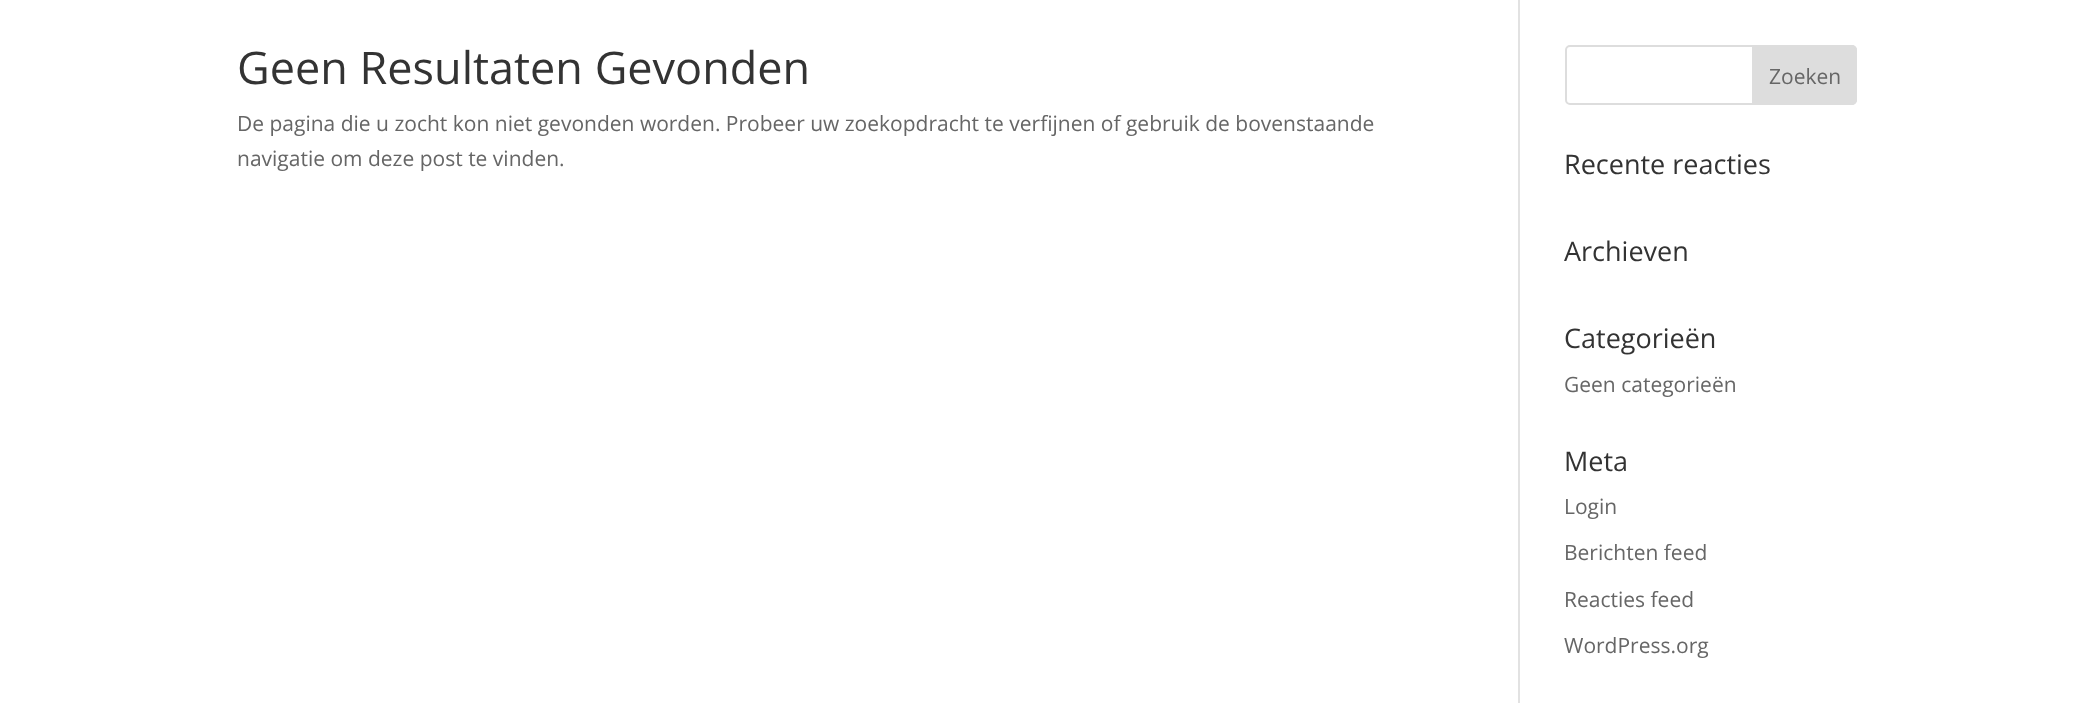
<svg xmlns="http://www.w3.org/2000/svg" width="2094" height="703">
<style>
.a{font:45px Open Sans;fill:#333}
.b{font:21px Open Sans;fill:#666}
.c{font:27px Open Sans;fill:#333}
</style>
<rect width="100%" height="100%" fill="#fff"/>
<path fill="#e2e2e2" d="M1518 0h2v703H1518z"/>
<rect fill="none" stroke="#ddd" stroke-width="2" x="1566" y="46" width="290" height="58" rx="4"/>
<path fill="#ddd" stroke="#ddd" stroke-width="2" d="M1753 46h99c2 0 4 2 4 4v50c0 2-2 4-4 4h-99z"/>
<text class="a" x="237" y="84">Geen Resultaten Gevonden</text>
<text class="b" x="237" y="131">De pagina die u zocht kon niet gevonden worden. Probeer uw zoekopdracht te verfijnen of gebruik de bovenstaande</text>
<text class="b" x="237" y="166">navigatie om deze post te vinden.</text>
<text class="b" x="1769" y="84">Zoeken</text>
<text class="c" x="1564" y="174">Recente reacties</text>
<text class="c" x="1564" y="261">Archieven</text>
<text class="c" x="1564" y="348">Categorieën</text>
<text class="b" x="1564" y="392">Geen categorieën</text>
<text class="c" x="1564" y="471">Meta</text>
<text class="b" x="1564" y="514">Login</text>
<text class="b" x="1564" y="560">Berichten feed</text>
<text class="b" x="1564" y="607">Reacties feed</text>
<text class="b" x="1564" y="653">WordPress.org</text>
</svg>
